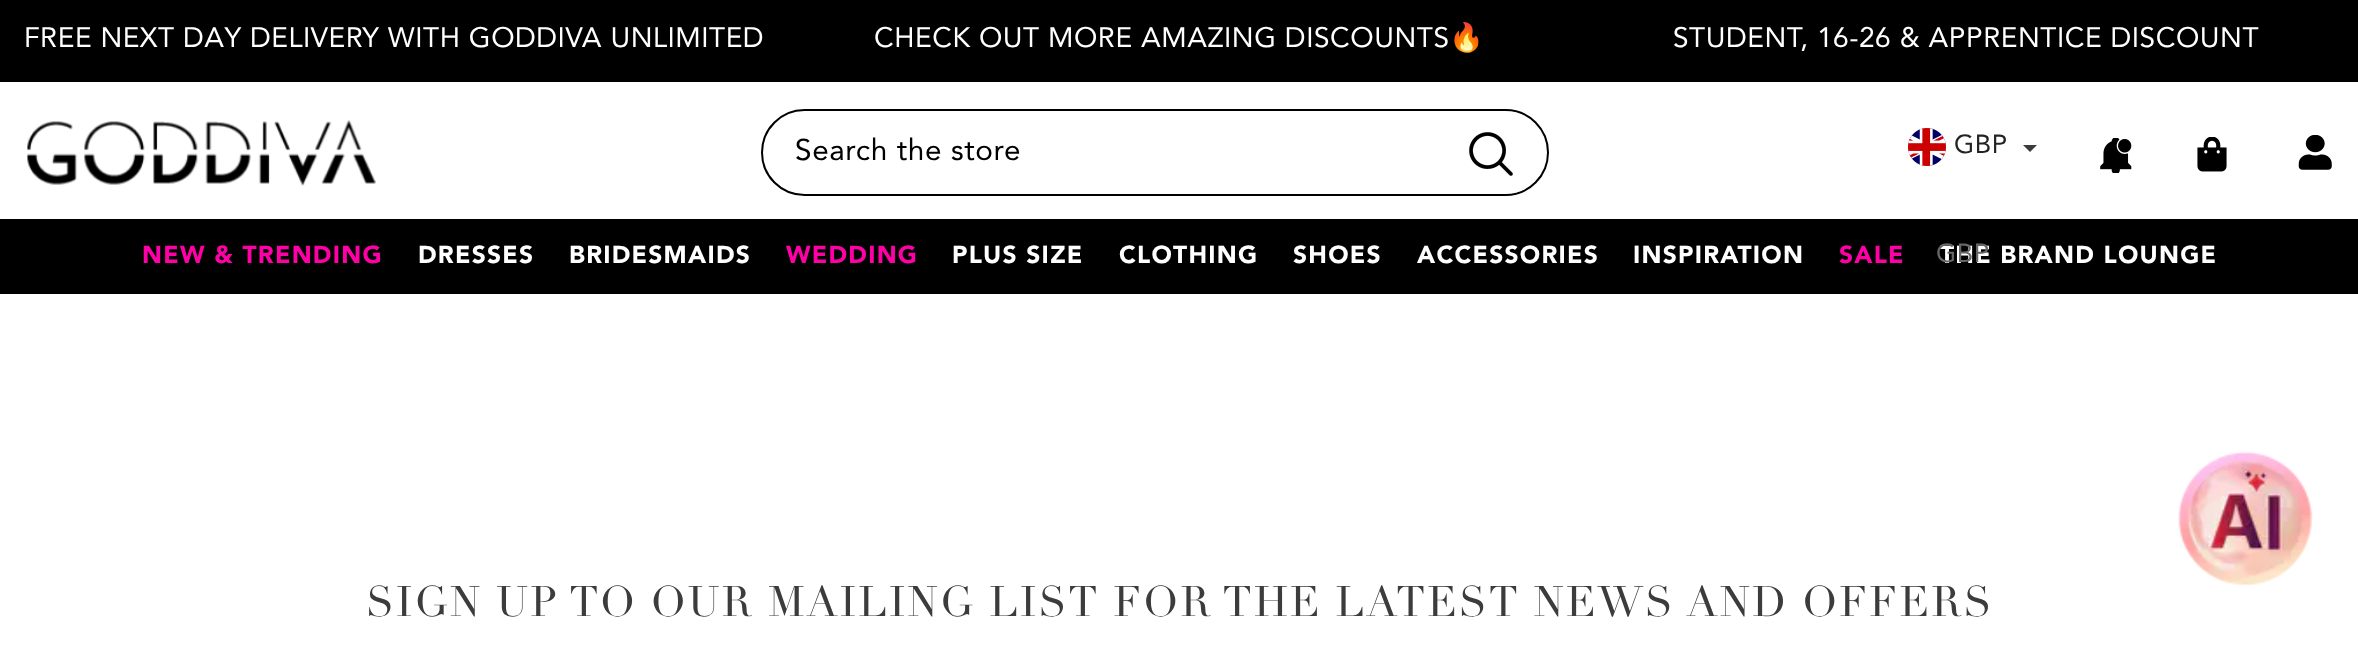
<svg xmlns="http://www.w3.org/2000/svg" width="2358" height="653">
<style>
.a{font:28px Avenir;letter-spacing:0.55px;fill:#fff}
.b{font:28px Noto Color Emoji;letter-spacing:0.55px;fill:#fff}
.c{font:29.75px Avenir;letter-spacing:0.6px;fill:#000}
.d{font:26px Avenir;letter-spacing:0.55px;fill:#232323}
.e{font:900 24.5px Avenir;letter-spacing:1.25px;fill:#ff00a7}
.f{font:900 24.5px Avenir;letter-spacing:1.25px;fill:#fff}
.g{font:26px Avenir;letter-spacing:0.55px;fill:#676767}
.h{font:42px Didot;letter-spacing:2.1px;fill:#3c3c3c}
</style>
<rect width="100%" height="100%" fill="#fff"/>
<path fill="#000" d="M0 0h2358v82H0z"/>
<image href="1.png" x="27" y="120" width="349" height="66"/>
<rect fill="none" stroke="#000" stroke-width="2" x="762" y="110" width="786" height="85" rx="42.5"/>
<image href="2.png" x="1469" y="132" width="44" height="44"/>
<image href="3.png" x="1908" y="128" width="38" height="38"/>
<path fill="#3c3c3c" d="M2023 145h14l-7 7z"/>
<image href="4.png" x="2100" y="138" width="32" height="35"/>
<image href="5.png" x="2197" y="137" width="30" height="35"/>
<image href="6.png" x="2298" y="135" width="34" height="35"/>
<path fill="#000" d="M0 219h2358v75H0z"/>
<image href="7.png" x="2178" y="451" width="135" height="135"/>
<text class="a" x="24" y="47">FREE NEXT DAY DELIVERY WITH GODDIVA UNLIMITED</text>
<text class="a" x="874" y="47">CHECK OUT MORE AMAZING DISCOUNTS</text>
<text class="b" x="1449" y="47">🔥</text>
<text class="a" x="1673" y="47">STUDENT, 16-26 &amp; APPRENTICE DISCOUNT</text>
<text class="c" x="795" y="160">Search the store</text>
<text class="d" x="1954" y="153">GBP</text>
<text class="e" x="142" y="263">NEW &amp; TRENDING</text>
<text class="f" x="418" y="263">DRESSES</text>
<text class="f" x="569" y="263">BRIDESMAIDS</text>
<text class="e" x="786" y="263">WEDDING</text>
<text class="f" x="952" y="263">PLUS SIZE</text>
<text class="f" x="1119" y="263">CLOTHING</text>
<text class="f" x="1293" y="263">SHOES</text>
<text class="f" x="1417" y="263">ACCESSORIES</text>
<text class="f" x="1633" y="263">INSPIRATION</text>
<text class="e" x="1839" y="263">SALE</text>
<text class="f" x="1940" y="263">THE BRAND LOUNGE</text>
<text class="g" x="1936" y="262">GBP</text>
<text class="h" x="366" y="616">SIGN UP TO OUR MAILING LIST FOR THE LATEST NEWS AND OFFERS</text>
</svg>
